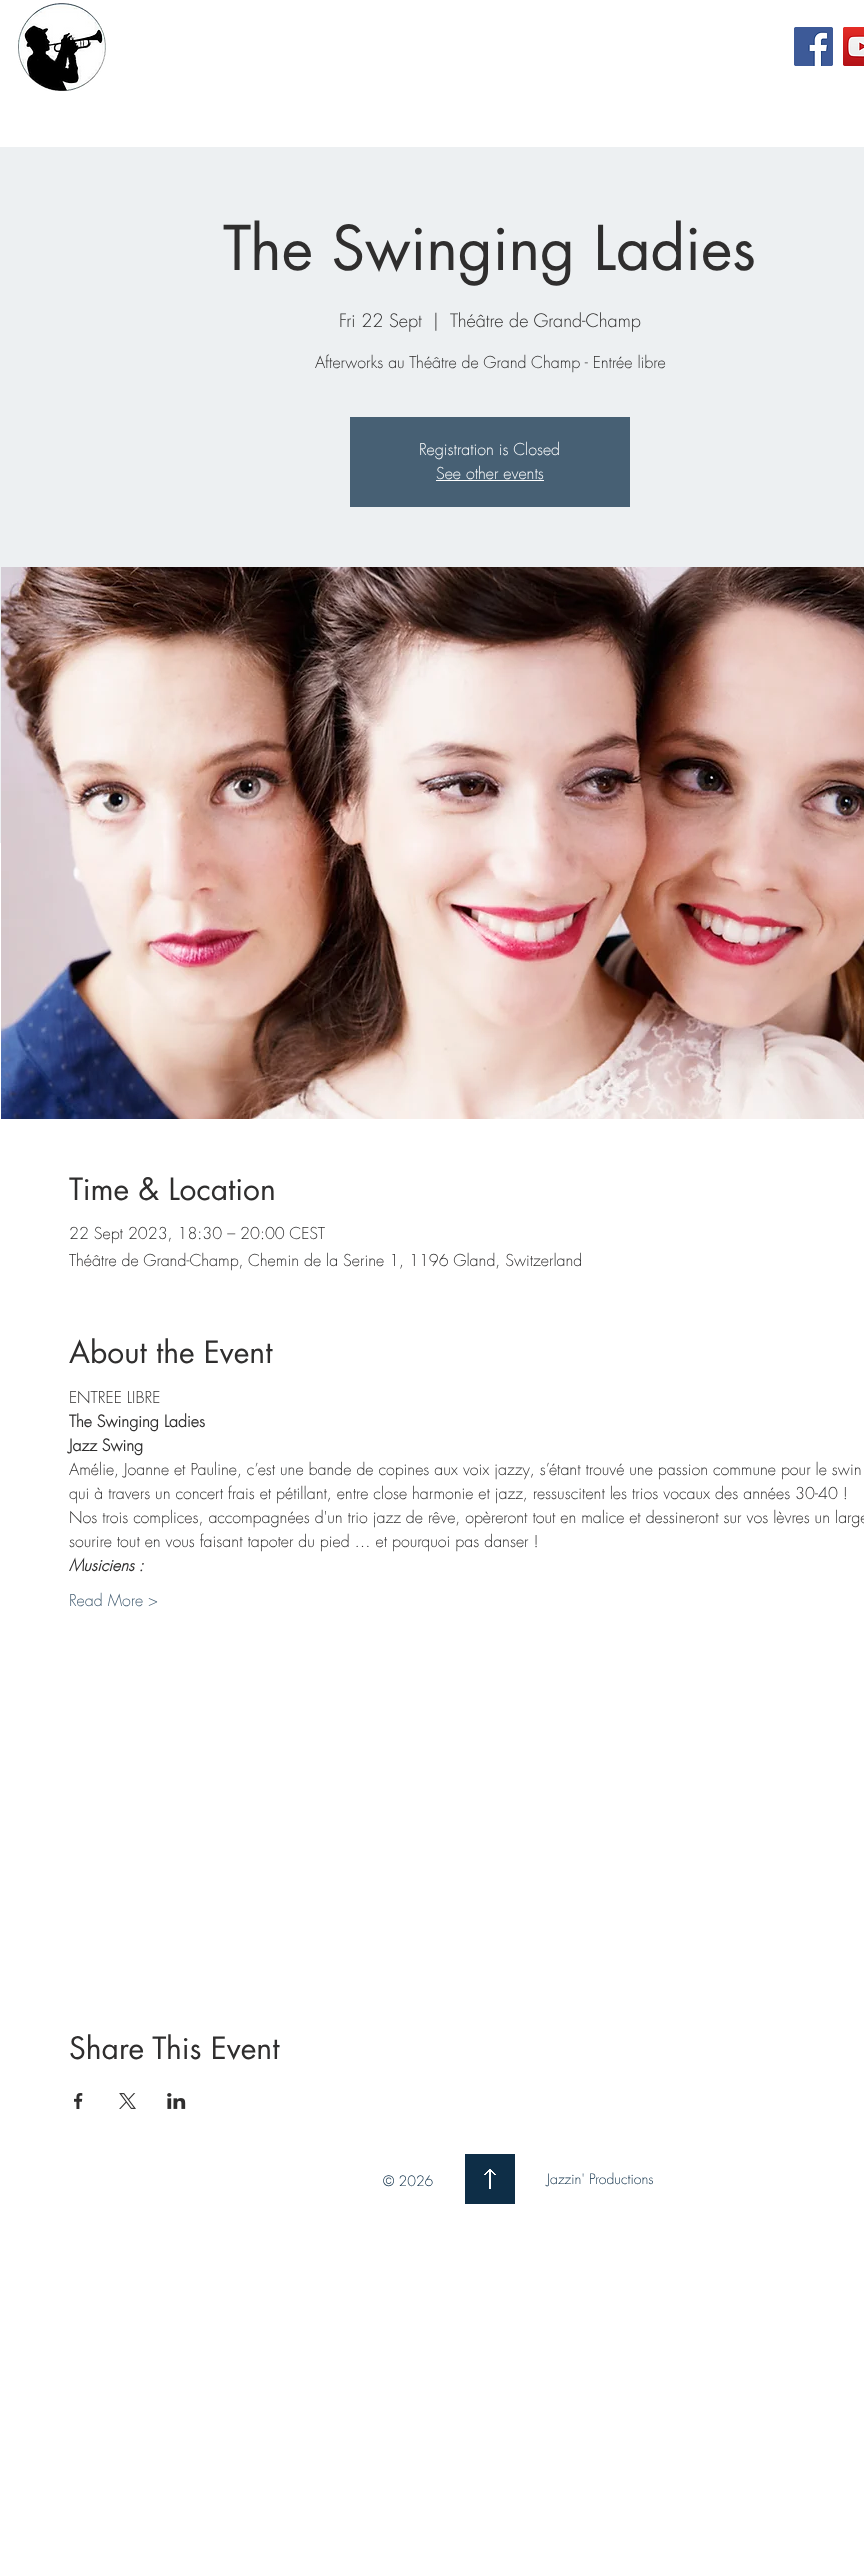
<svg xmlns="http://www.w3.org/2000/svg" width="864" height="2564">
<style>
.a{font:60px futura;fill:#2f2e2e}
.b{font:300 18px futura;fill:#2f2e2e}
.c{font:300 16px futura;fill:#2f2e2e}
.d{font:300 16px futura;fill:#fff}
.e{font:30px futura;fill:#2f2e2e}
.f{font:bold 16px futura;fill:#2f2e2e}
.g{font:italic bold 16px futura;fill:#2f2e2e}
.h{font:300 16px futura;fill:#476074}
.i{font:300 14px futura;fill:#0e2e47}
</style>
<rect width="100%" height="100%" fill="#fff"/>
<image href="1.png" x="18" y="3" width="88" height="88"/>
<image href="2.png" x="794" y="27" width="39" height="39"/>
<image href="3.png" x="843" y="27" width="21" height="39"/>
<path fill="#edf0f2" d="M0 147h864v696H0z"/>
<path fill="#476074" d="M350 417h280v90H350z"/>
<path fill="#fff" d="M436 480h108v1H436z"/>
<image href="4.png" x="1" y="567" width="863" height="552"/>
<image href="5.png" x="74" y="2093" width="9" height="16"/>
<image href="6.png" x="119" y="2093" width="17" height="16"/>
<image href="7.png" x="167" y="2093" width="19" height="16"/>
<image href="8.png" x="465" y="2154" width="50" height="50"/>
<text class="a" x="223" y="270">The Swinging Ladies</text>
<text class="b" x="339" y="327">Fri 22 Sept</text>
<text class="b" x="433" y="327">|</text>
<text class="b" x="450" y="327">Théâtre de Grand-Champ</text>
<text class="c" x="315" y="368">Afterworks au Théâtre de Grand Champ - Entrée libre</text>
<text class="d" x="419" y="455">Registration is Closed</text>
<text class="d" x="436" y="479">See other events</text>
<text class="e" x="69" y="1200">Time &amp; Location</text>
<text class="c" x="69" y="1239">22 Sept 2023, 18:30 – 20:00 CEST</text>
<text class="c" x="69" y="1266">Théâtre de Grand-Champ, Chemin de la Serine 1, 1196 Gland, Switzerland</text>
<text class="e" x="69" y="1363">About the Event</text>
<text class="c" x="69" y="1403">ENTREE LIBRE</text>
<text class="f" x="69" y="1427">The Swinging Ladies</text>
<text class="f" x="69" y="1451">Jazz Swing</text>
<text class="c" x="69" y="1475">Amélie, Joanne et Pauline, c’est une bande de copines aux voix jazzy, s’étant trouvé une passion commune pour le swin</text>
<text class="c" x="69" y="1499">qui à travers un concert frais et pétillant, entre close harmonie et jazz, ressuscitent les trios vocaux des années 30-40 !</text>
<text class="c" x="69" y="1523">Nos trois complices, accompagnées d'un trio jazz de rêve, opèreront tout en malice et dessineront sur vos lèvres un large</text>
<text class="c" x="69" y="1547">sourire tout en vous faisant tapoter du pied … et pourquoi pas danser !</text>
<text class="g" x="69" y="1571">Musiciens :</text>
<text class="h" x="69" y="1606">Read More &gt;</text>
<text class="e" x="69" y="2059">Share This Event</text>
<text class="i" x="383" y="2186">© 2026</text>
<text class="i" x="547" y="2184">Jazzin' Productions</text>
</svg>
